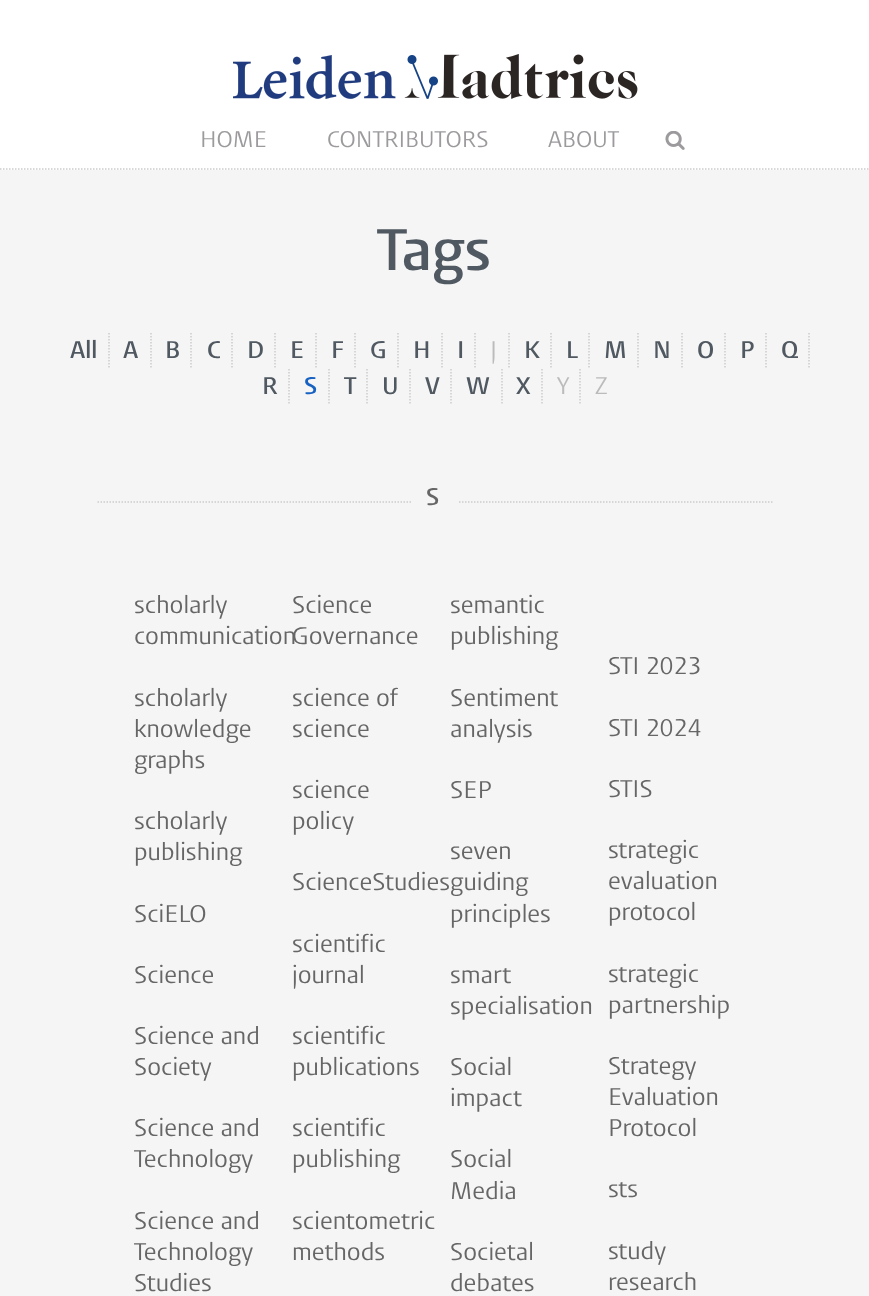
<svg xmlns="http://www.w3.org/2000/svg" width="869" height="1296">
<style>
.a{font:22.5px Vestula;fill:#9d9a9e}
.b{font:600 58px Vestula;fill:#505961}
.c{font:600 24px Vestula;fill:#505961}
.d{font:24px Vestula;fill:#bbb}
.e{font:600 24px Vestula;fill:#1761c2}
.f{font:600 24px Vestula;letter-spacing:5px;fill:#666}
.g{font:24px Vestula;fill:#666}
</style>
<rect width="100%" height="100%" fill="#f5f5f5"/>
<path fill="#fff" d="M0 0h869v170H0z"/>
<path fill="none" stroke="#ccc" stroke-width="1.5" stroke-dasharray="1.5 1.5" d="M0 169h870"/>
<image href="1.png" x="233" y="54" width="405" height="45"/>
<image href="2.png" x="665" y="131" width="20" height="19"/>
<path fill="none" stroke="#ccc" stroke-width="1.5" stroke-dasharray="1.5 1.5" d="M109 333v36"/>
<path fill="none" stroke="#ccc" stroke-width="1.5" stroke-dasharray="1.5 1.5" d="M151 333v36"/>
<path fill="none" stroke="#ccc" stroke-width="1.5" stroke-dasharray="1.5 1.5" d="M191 333v36"/>
<path fill="none" stroke="#ccc" stroke-width="1.5" stroke-dasharray="1.5 1.5" d="M232 333v36"/>
<path fill="none" stroke="#ccc" stroke-width="1.5" stroke-dasharray="1.5 1.5" d="M275 333v36"/>
<path fill="none" stroke="#ccc" stroke-width="1.5" stroke-dasharray="1.5 1.5" d="M316 333v36"/>
<path fill="none" stroke="#ccc" stroke-width="1.5" stroke-dasharray="1.5 1.5" d="M355 333v36"/>
<path fill="none" stroke="#ccc" stroke-width="1.5" stroke-dasharray="1.5 1.5" d="M398 333v36"/>
<path fill="none" stroke="#ccc" stroke-width="1.5" stroke-dasharray="1.5 1.5" d="M442 333v36"/>
<path fill="none" stroke="#ccc" stroke-width="1.5" stroke-dasharray="1.5 1.5" d="M475 333v36"/>
<path fill="none" stroke="#ccc" stroke-width="1.5" stroke-dasharray="1.5 1.5" d="M509 333v36"/>
<path fill="none" stroke="#ccc" stroke-width="1.5" stroke-dasharray="1.5 1.5" d="M551 333v36"/>
<path fill="none" stroke="#ccc" stroke-width="1.5" stroke-dasharray="1.5 1.5" d="M589 333v36"/>
<path fill="none" stroke="#ccc" stroke-width="1.5" stroke-dasharray="1.5 1.5" d="M638 333v36"/>
<path fill="none" stroke="#ccc" stroke-width="1.5" stroke-dasharray="1.5 1.5" d="M682 333v36"/>
<path fill="none" stroke="#ccc" stroke-width="1.5" stroke-dasharray="1.5 1.5" d="M725 333v36"/>
<path fill="none" stroke="#ccc" stroke-width="1.5" stroke-dasharray="1.5 1.5" d="M766 333v36"/>
<path fill="none" stroke="#ccc" stroke-width="1.5" stroke-dasharray="1.5 1.5" d="M809 333v36"/>
<path fill="none" stroke="#ccc" stroke-width="1.5" stroke-dasharray="1.5 1.5" d="M289 369v36"/>
<path fill="none" stroke="#ccc" stroke-width="1.5" stroke-dasharray="1.5 1.5" d="M329 369v36"/>
<path fill="none" stroke="#ccc" stroke-width="1.5" stroke-dasharray="1.5 1.5" d="M367 369v36"/>
<path fill="none" stroke="#ccc" stroke-width="1.5" stroke-dasharray="1.5 1.5" d="M410 369v36"/>
<path fill="none" stroke="#ccc" stroke-width="1.5" stroke-dasharray="1.5 1.5" d="M451 369v36"/>
<path fill="none" stroke="#ccc" stroke-width="1.5" stroke-dasharray="1.5 1.5" d="M502 369v36"/>
<path fill="none" stroke="#ccc" stroke-width="1.5" stroke-dasharray="1.5 1.5" d="M542 369v36"/>
<path fill="none" stroke="#ccc" stroke-width="1.5" stroke-dasharray="1.5 1.5" d="M580 369v36"/>
<path fill="none" stroke="#ccc" stroke-width="1.5" stroke-dasharray="1.5 1.5" d="M97.5 502h313.5"/>
<path fill="none" stroke="#ccc" stroke-width="1.5" stroke-dasharray="1.5 1.5" d="M459 502h313.5"/>
<text class="a" x="200" y="147">HOME</text>
<text class="a" x="327" y="147">CONTRIBUTORS</text>
<text class="a" x="548" y="147">ABOUT</text>
<text class="b" x="377" y="270">Tags</text>
<text class="c" x="70" y="358">All</text>
<text class="c" x="123" y="358">A</text>
<text class="c" x="165" y="358">B</text>
<text class="c" x="207" y="358">C</text>
<text class="c" x="247" y="358">D</text>
<text class="c" x="290" y="358">E</text>
<text class="c" x="331" y="358">F</text>
<text class="c" x="370" y="358">G</text>
<text class="c" x="413" y="358">H</text>
<text class="c" x="457" y="358">I</text>
<text class="d" x="490" y="358">J</text>
<text class="c" x="524" y="358">K</text>
<text class="c" x="566" y="358">L</text>
<text class="c" x="604" y="358">M</text>
<text class="c" x="653" y="358">N</text>
<text class="c" x="697" y="358">O</text>
<text class="c" x="740" y="358">P</text>
<text class="c" x="781" y="358">Q</text>
<text class="c" x="262" y="394">R</text>
<text class="e" x="304" y="394">S</text>
<text class="c" x="344" y="394">T</text>
<text class="c" x="382" y="394">U</text>
<text class="c" x="425" y="394">V</text>
<text class="c" x="466" y="394">W</text>
<text class="c" x="516" y="394">X</text>
<text class="d" x="557" y="394">Y</text>
<text class="d" x="595" y="394">Z</text>
<text class="f" x="426" y="505">S</text>
<text class="g" x="134" y="613">scholarly</text>
<text class="g" x="134" y="644">communication</text>
<text class="g" x="292" y="613">Science</text>
<text class="g" x="292" y="644">Governance</text>
<text class="g" x="450" y="613">semantic</text>
<text class="g" x="450" y="644">publishing</text>
<text class="g" x="608" y="674">STI 2023</text>
<text class="g" x="134" y="706">scholarly</text>
<text class="g" x="134" y="737">knowledge</text>
<text class="g" x="134" y="768">graphs</text>
<text class="g" x="292" y="706">science of</text>
<text class="g" x="292" y="737">science</text>
<text class="g" x="450" y="706">Sentiment</text>
<text class="g" x="450" y="737">analysis</text>
<text class="g" x="608" y="736">STI 2024</text>
<text class="g" x="292" y="798">science</text>
<text class="g" x="292" y="829">policy</text>
<text class="g" x="450" y="798">SEP</text>
<text class="g" x="608" y="797">STIS</text>
<text class="g" x="134" y="829">scholarly</text>
<text class="g" x="134" y="860">publishing</text>
<text class="g" x="450" y="859">seven</text>
<text class="g" x="450" y="922">principles</text>
<text class="g" x="608" y="858">strategic</text>
<text class="g" x="608" y="889">evaluation</text>
<text class="g" x="608" y="920">protocol</text>
<text class="g" x="292" y="890">ScienceStudiesguiding</text>
<text class="g" x="134" y="922">SciELO</text>
<text class="g" x="134" y="983">Science</text>
<text class="g" x="292" y="952">scientific</text>
<text class="g" x="292" y="983">journal</text>
<text class="g" x="450" y="983">smart</text>
<text class="g" x="450" y="1014">specialisation</text>
<text class="g" x="608" y="982">strategic</text>
<text class="g" x="608" y="1013">partnership</text>
<text class="g" x="134" y="1044">Science and</text>
<text class="g" x="134" y="1075">Society</text>
<text class="g" x="292" y="1044">scientific</text>
<text class="g" x="292" y="1075">publications</text>
<text class="g" x="450" y="1075">Social</text>
<text class="g" x="450" y="1106">impact</text>
<text class="g" x="608" y="1074">Strategy</text>
<text class="g" x="608" y="1105">Evaluation</text>
<text class="g" x="608" y="1136">Protocol</text>
<text class="g" x="134" y="1136">Science and</text>
<text class="g" x="134" y="1167">Technology</text>
<text class="g" x="292" y="1136">scientific</text>
<text class="g" x="292" y="1167">publishing</text>
<text class="g" x="450" y="1167">Social</text>
<text class="g" x="450" y="1199">Media</text>
<text class="g" x="608" y="1197">sts</text>
<text class="g" x="134" y="1229">Science and</text>
<text class="g" x="134" y="1260">Technology</text>
<text class="g" x="134" y="1291">Studies</text>
<text class="g" x="292" y="1229">scientometric</text>
<text class="g" x="292" y="1260">methods</text>
<text class="g" x="450" y="1260">Societal</text>
<text class="g" x="450" y="1291">debates</text>
<text class="g" x="608" y="1259">study</text>
<text class="g" x="608" y="1290">research</text>
</svg>
